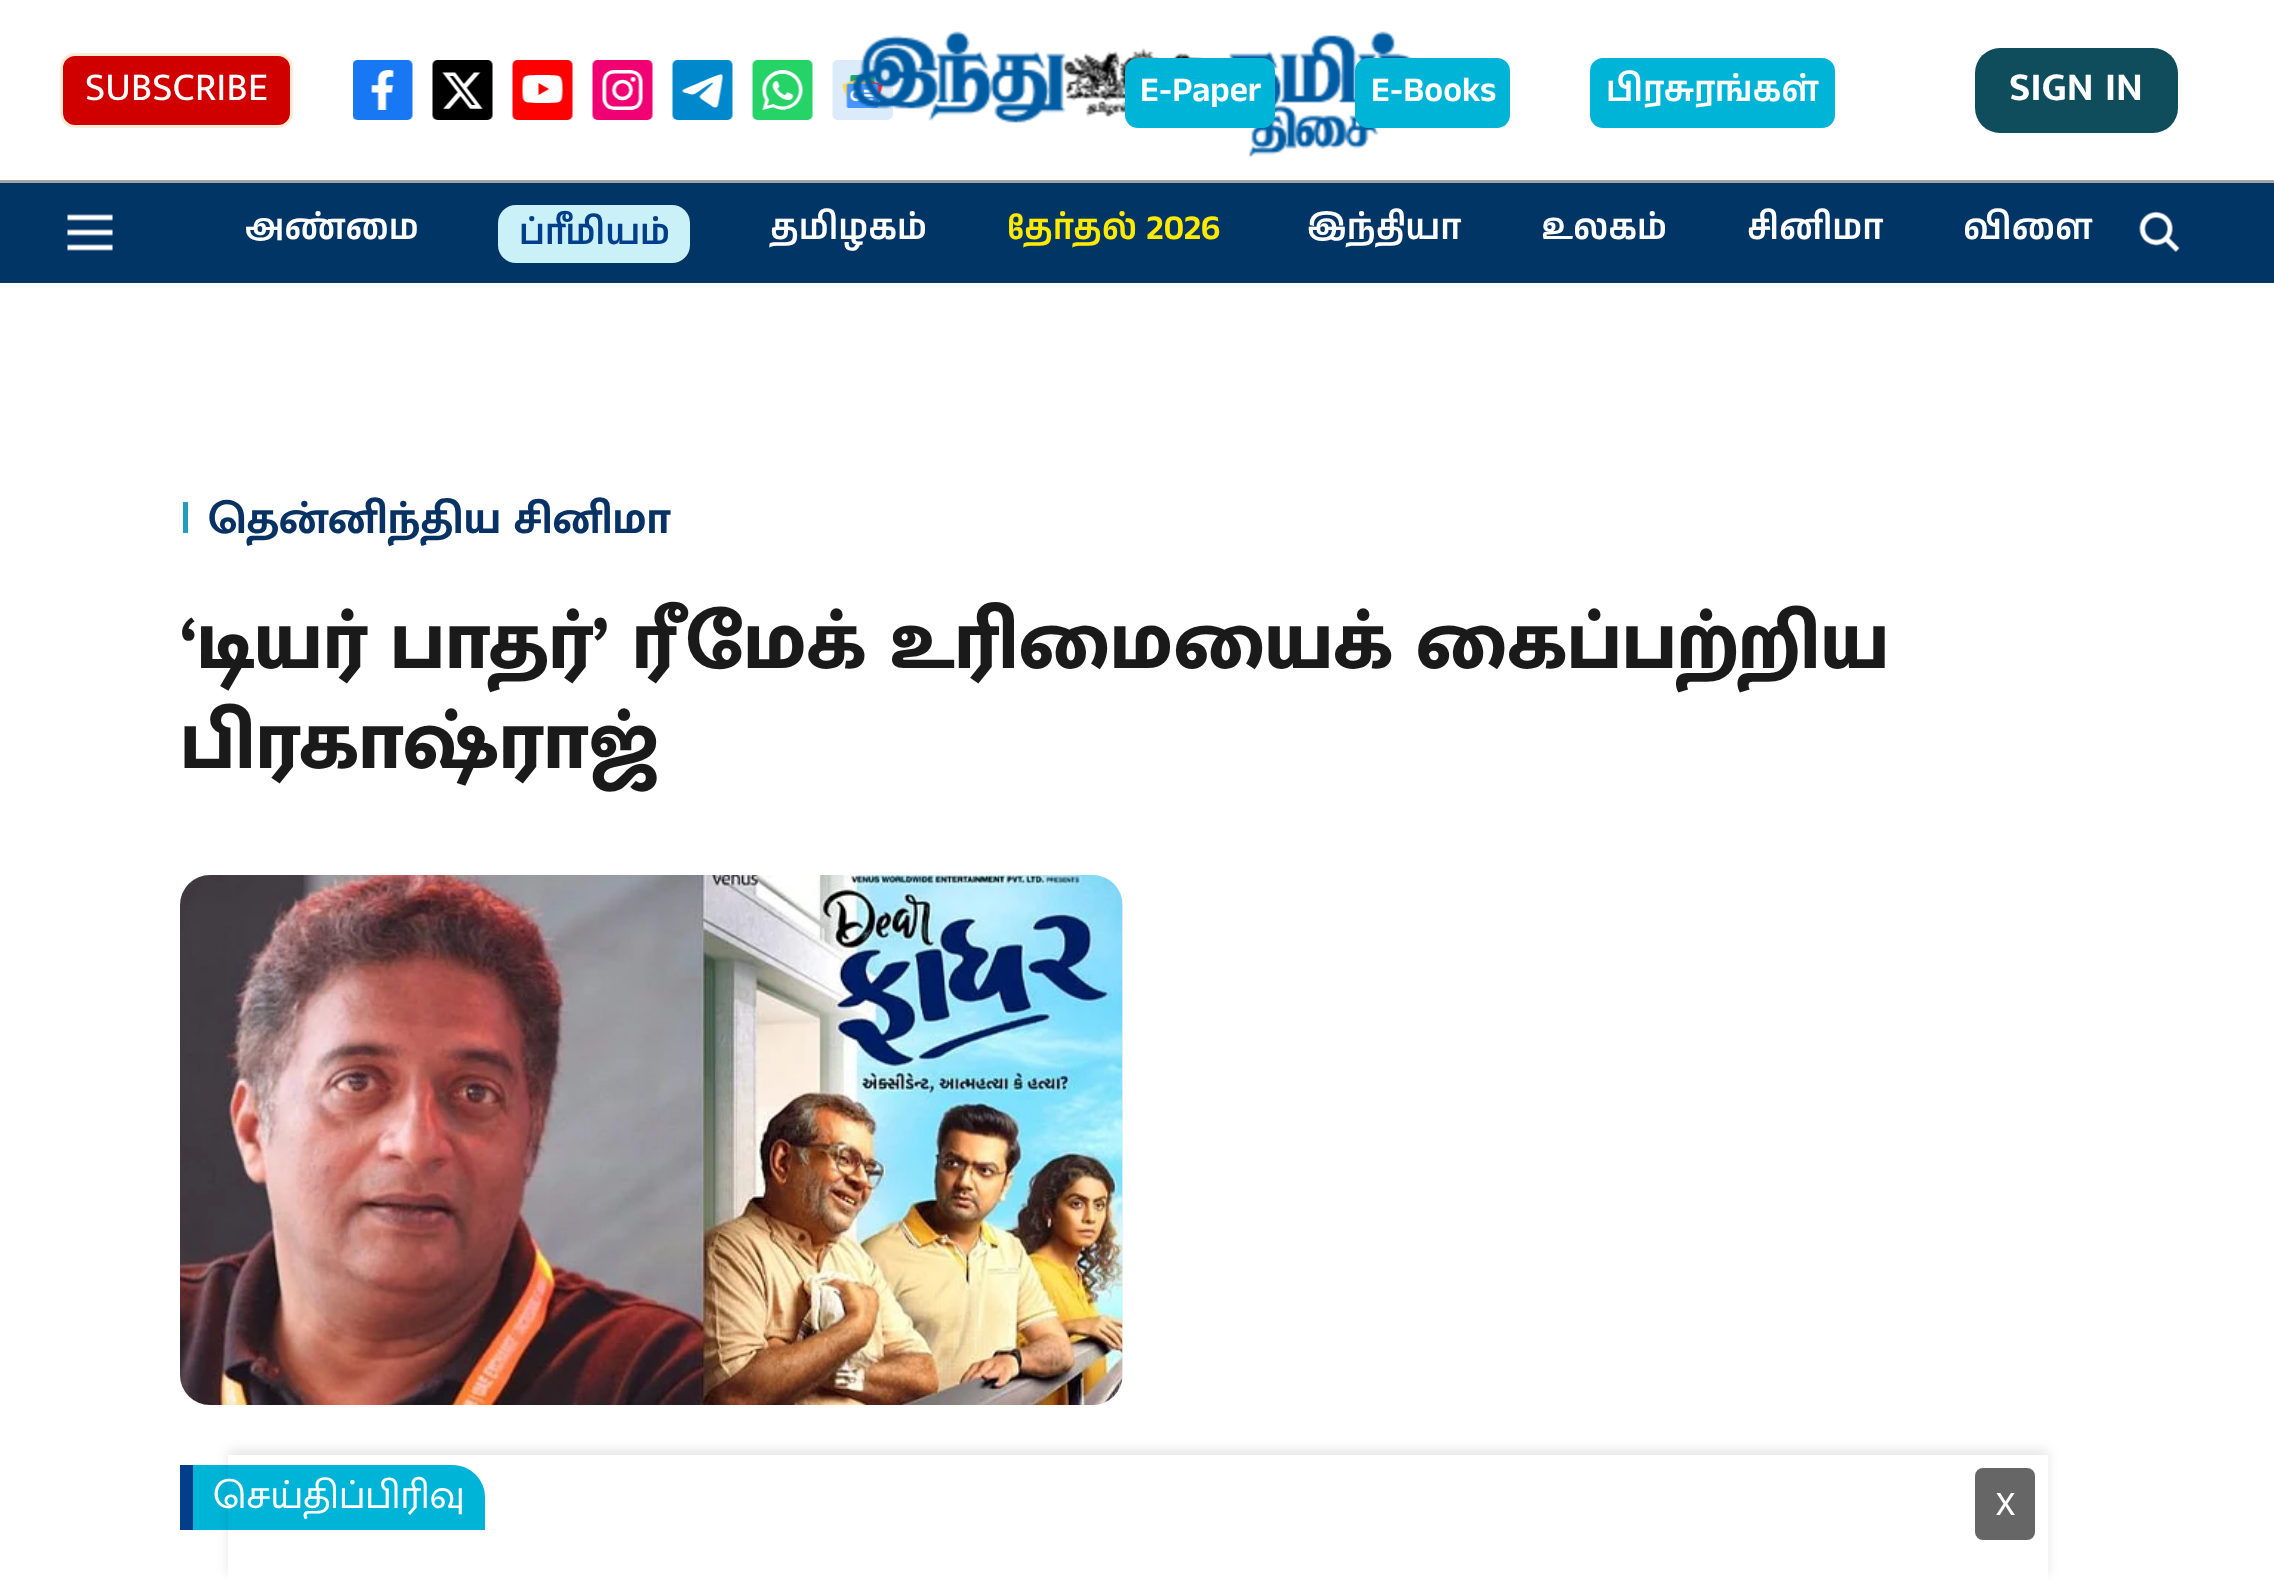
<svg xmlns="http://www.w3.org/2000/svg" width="2274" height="1580">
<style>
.a{font:40px Mukta Malar;fill:#fff}
.b{font:600 35px Anek Tamil;fill:#fff}
.c{font:bold 40px Mukta Malar;fill:#fff}
.d{font:600 35px Anek Tamil;fill:#023e8a}
.e{font:600 35px Anek Tamil;fill:#ffea00}
.f{font:bold 45px Liberation Sans;fill:#219ebc}
.g{font:bold 45px Mukta Malar;fill:#083264}
.h{font:800 82.5px Mukta Malar;fill:#1a1a1a}
.i{font:35px Mukta Malar;fill:#fff}
</style>
<defs>
<clipPath id="clip1"><path d="M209 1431h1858v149h-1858zm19 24h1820v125h-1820z" clip-rule="evenodd"/></clipPath>
<clipPath id="clip2"><path d="M180 483h8v75H180z"/></clipPath>
</defs>
<rect width="100%" height="100%" fill="#fff"/>
<path fill="#a4a4a4" d="M0 180h2274v3H0z"/>
<rect fill="#d00000" stroke="#faebd7" stroke-width="3" x="61.5" y="54.5" width="230" height="72" rx="13.5"/>
<image href="1.png" x="353" y="60" width="60" height="60"/>
<image href="2.png" x="432" y="60" width="61" height="60"/>
<image href="3.png" x="512" y="60" width="61" height="60"/>
<image href="4.png" x="592" y="60" width="61" height="60"/>
<image href="5.png" x="672" y="60" width="61" height="60"/>
<image href="6.png" x="752" y="60" width="61" height="60"/>
<image href="7.png" x="832" y="60" width="61" height="60"/>
<image href="8.png" x="852" y="31" width="561" height="126"/>
<rect fill="#00b4d8" x="1125" y="58" width="150" height="70" rx="13"/>
<rect fill="#00b4d8" x="1355" y="58" width="155" height="70" rx="13"/>
<rect fill="#00b4d8" x="1590" y="58" width="245" height="70" rx="13"/>
<rect fill="#0f4c5c" x="1975" y="48" width="203" height="85" rx="25"/>
<path fill="#003566" d="M0 183h2274v100H0z"/>
<image href="9.png" x="67" y="214" width="46" height="37"/>
<rect fill="#caf0f8" x="498" y="205" width="192" height="58" rx="18"/>
<image href="10.png" x="2139" y="211" width="41" height="41"/>
<rect fill="#f0f0f0" x="180" y="875" width="943" height="530" rx="30"/>
<image href="11.png" x="180" y="875" width="943" height="530"/>
<path fill="#00b4d8" d="M180 1465h272.5c18 0 32.5 14.5 32.5 32.5v32.5h-305z"/>
<path fill="#023e8a" d="M180 1465h13v65H180z"/>
<g clip-path="url(#clip1)">
<path fill="#0000001a" filter="blur(6px)" d="M228 1450h1820v125H228z"/>
</g>
<rect fill="#666" x="1975" y="1468" width="60" height="72" rx="8"/>
<text class="a" x="85" y="100">SUBSCRIBE</text>
<text class="b" x="1140" y="101">E-Paper</text>
<text class="b" x="1371" y="101">E-Books</text>
<text class="b" x="1606" y="101">பிரசுரங்கள்</text>
<text class="c" x="2009" y="100">SIGN IN</text>
<text class="b" x="245" y="239">அண்மை</text>
<text class="d" x="519" y="244">ப்ரீமியம்</text>
<text class="b" x="770" y="239">தமிழகம்</text>
<text class="e" x="1007" y="239">தேர்தல் 2026</text>
<text class="b" x="1307" y="239">இந்தியா</text>
<text class="b" x="1541" y="239">உலகம்</text>
<text class="b" x="1747" y="239">சினிமா</text>
<text class="b" x="1963" y="239">விளை</text>
<g clip-path="url(#clip2)">
<text class="f" x="180" y="533">I</text>
</g>
<text class="g" x="208" y="533">தென்னிந்திய சினிமா</text>
<text class="h" x="180" y="668">‘டியர் பாதர்’ ரீமேக் உரிமையைக் கைப்பற்றிய</text>
<text class="h" x="180" y="768">பிரகாஷ்ராஜ்</text>
<text class="a" x="213" y="1508">செய்திப்பிரிவு</text>
<text class="i" x="1996" y="1515">X</text>
</svg>
